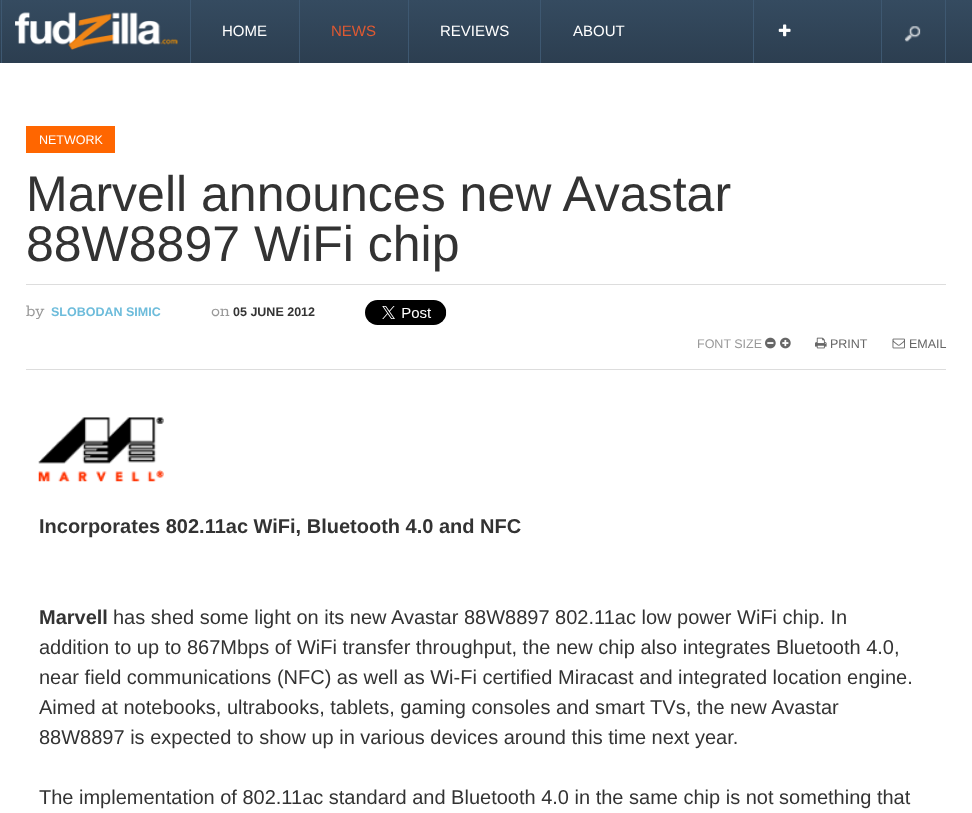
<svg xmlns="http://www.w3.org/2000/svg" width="972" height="813">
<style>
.a{font:15px Liberation Sans;fill:#fff}
.b{font:15px Liberation Sans;fill:#de5932}
.c{font:12.5px Liberation Sans;fill:#fff}
.d{font:50px Liberation Sans;fill:#333}
.e{font:18px Rokkitt;fill:#999}
.f{font:bold 12.5px Liberation Sans;fill:#6dbcdb}
.g{font:bold 12.5px Liberation Sans;fill:#333}
.h{font:12.5px Liberation Sans;fill:#999}
.i{font:12.5px Liberation Sans;fill:#666}
.j{font:bold 20px Liberation Sans;fill:#333}
.k{font:20px Liberation Sans;fill:#333}
</style>
<defs>
<linearGradient id="g1" gradientUnits="userSpaceOnUse" x1="486" y1="0" x2="486" y2="63"><stop offset="0" stop-color="#354b60"/><stop offset="1" stop-color="#2c3e50"/></linearGradient>
</defs>
<rect width="100%" height="100%" fill="#fff"/>
<path fill="url(#g1)" d="M0 0h972v63H0z"/>
<path fill="#3e5871" d="M190 0h1v63H190z"/>
<path fill="#3e5871" d="M1 0h1v63H1z"/>
<image href="1.png" x="15" y="12" width="163" height="38"/>
<path fill="#3e5871" d="M299 0h1v63H299z"/>
<path fill="#3e5871" d="M408 0h1v63H408z"/>
<path fill="#3e5871" d="M540 0h1v63H540z"/>
<path fill="#3e5871" d="M753 0h1v63H753z"/>
<image href="2.png" x="778" y="24" width="13" height="13"/>
<path fill="#3e5871" d="M945 0h1v63H945z"/>
<path fill="#3e5871" d="M881 0h1v63H881z"/>
<image href="3.png" x="904" y="26" width="17" height="16"/>
<path fill="#f60" d="M26 126h89v27H26z"/>
<path fill="#ddd" d="M26 284h920v1H26z"/>
<path fill="#ddd" d="M26 369h920v1H26z"/>
<image href="4.png" x="365" y="300" width="82" height="25"/>
<image href="5.png" x="765" y="337" width="11" height="12"/>
<image href="6.png" x="780" y="337" width="11" height="12"/>
<image href="7.png" x="815" y="337" width="12" height="12"/>
<image href="8.png" x="892" y="338" width="13" height="11"/>
<image href="9.png" x="38" y="417" width="126" height="65"/>
<text class="a" x="222" y="36">HOME</text>
<text class="b" x="331" y="36">NEWS</text>
<text class="a" x="440" y="36">REVIEWS</text>
<text class="a" x="573" y="36">ABOUT</text>
<text class="c" x="39" y="144">NETWORK</text>
<text class="d" x="26" y="211">Marvell announces new Avastar</text>
<text class="d" x="26" y="261">88W8897 WiFi chip</text>
<text class="e" x="26" y="316">by</text>
<text class="f" x="51" y="316">SLOBODAN SIMIC</text>
<text class="e" x="211" y="316">on</text>
<text class="g" x="233" y="316">05 JUNE 2012</text>
<text class="h" x="697" y="348">FONT SIZE</text>
<text class="i" x="830" y="348">PRINT</text>
<text class="i" x="909" y="348">EMAIL</text>
<text class="j" x="39" y="533">Incorporates 802.11ac WiFi, Bluetooth 4.0 and NFC</text>
<text class="j" x="39" y="624">Marvell</text>
<text class="k" x="113" y="624">has shed some light on its new Avastar 88W8897 802.11ac low power WiFi chip. In</text>
<text class="k" x="39" y="654">addition to up to 867Mbps of WiFi transfer throughput, the new chip also integrates Bluetooth 4.0,</text>
<text class="k" x="39" y="684">near field communications (NFC) as well as Wi-Fi certified Miracast and integrated location engine.</text>
<text class="k" x="39" y="714">Aimed at notebooks, ultrabooks, tablets, gaming consoles and smart TVs, the new Avastar</text>
<text class="k" x="39" y="744">88W8897 is expected to show up in various devices around this time next year.</text>
<text class="k" x="39" y="804">The implementation of 802.11ac standard and Bluetooth 4.0 in the same chip is not something that</text>
</svg>
